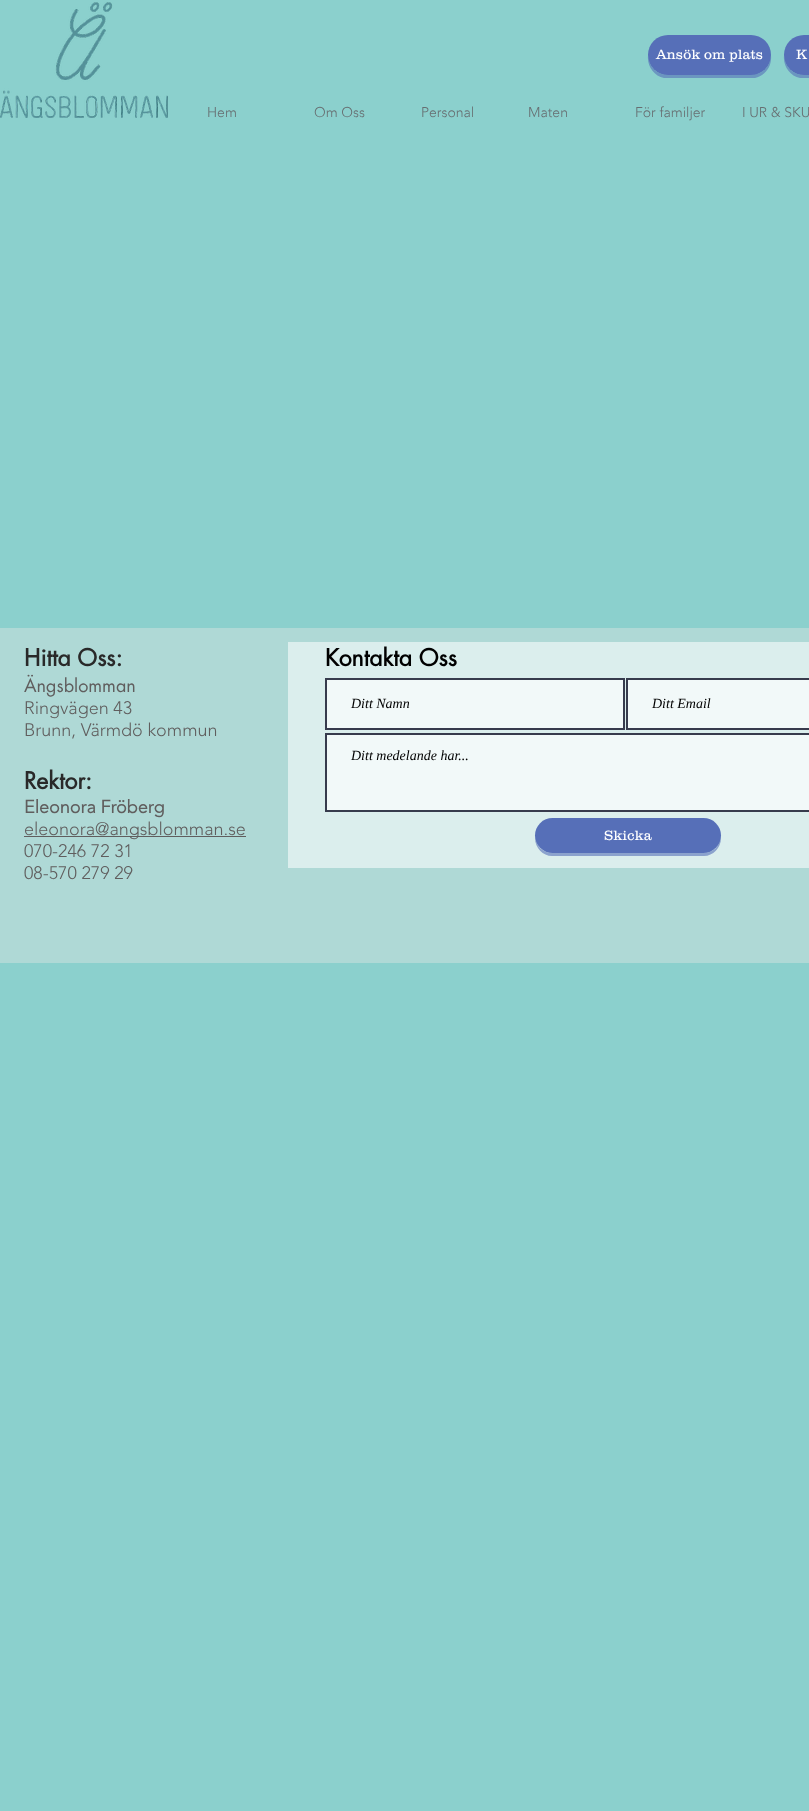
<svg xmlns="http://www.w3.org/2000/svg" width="809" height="1811">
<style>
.a{font:300 14px 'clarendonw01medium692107';fill:#fff}
.b{font:300 14px 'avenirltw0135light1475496';fill:#676e71}
.c{font:bold 23px futura;fill:#292929}
.d{font:18px futura;fill:#605e5e}
.e{font:300 18px 'avenirltw0135light1475496';fill:#605e5e}
.f{font:bold 18px 'avenirltw0135light1475496';fill:#605e5e}
.g{font:bold 23px futura;fill:#000}
.h{font:italic 14px Liberation Serif;fill:#000}
</style>
<rect width="100%" height="100%" fill="#8bd0cd"/>
<image href="1.png" x="0" y="2" width="168" height="116"/>
<path fill="#6b96c0" d="M648 56c-1 10 6 20 16 22h18h73c10-2 17-12 16-22c-1 11-9 19-20 19h-83c-11 0-19-8-20-19z"/>
<rect fill="#566fb8" x="648" y="35" width="123" height="40" rx="20"/>
<path fill="#6b96c0" d="M784 56c-1 10 6 20 16 22h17h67c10-2 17-12 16-22c-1 11-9 19-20 19h-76c-11 0-19-8-20-19z"/>
<rect fill="#566fb8" x="784" y="35" width="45" height="40" rx="20"/>
<path fill="#afd9d6" d="M0 628h809v335H0z"/>
<path fill="#605e5e" d="M24 836h222v1H24z"/>
<path fill="#dbeeed" d="M288 642h521v226H288z"/>
<path fill="#f2f9f9" stroke="#373b4d" stroke-width="2" d="M326 679h298v50H326z"/>
<path fill="#f2f9f9" stroke="#373b4d" stroke-width="2" d="M627 679h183v50H627z"/>
<path fill="#f2f9f9" stroke="#373b4d" stroke-width="2" d="M326 734h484v77H326z"/>
<path fill="#8ba2cd" d="M535 837v1c0 10 8 18 17 18h152c9 0 17-8 17-18v-1c-1 9-8 16-17 16h-152c-9 0-16-7-17-16z"/>
<rect fill="#566fb8" x="535" y="818" width="186" height="35" rx="17.5"/>
<text class="a" x="656" y="59">Ansök om plats</text>
<text class="a" x="796" y="59">K</text>
<text class="b" x="207" y="117">Hem</text>
<text class="b" x="314" y="117">Om Oss</text>
<text class="b" x="421" y="117">Personal</text>
<text class="b" x="528" y="117">Maten</text>
<text class="b" x="635" y="117">För familjer</text>
<text class="b" x="742" y="117">I UR &amp; SKU</text>
<text class="c" x="24" y="666">Hitta Oss:</text>
<text class="d" x="24" y="692">Ängsblomman</text>
<text class="e" x="24" y="714">Ringvägen 43</text>
<text class="e" x="24" y="736">Brunn, Värmdö kommun</text>
<text class="c" x="24" y="789">Rektor:</text>
<text class="f" x="24" y="813">Eleonora Fröberg</text>
<text class="e" x="24" y="835">eleonora@angsblomman.se</text>
<text class="e" x="24" y="857">070-246 72 31</text>
<text class="e" x="24" y="879">08-570 279 29</text>
<text class="g" x="325" y="666">Kontakta Oss</text>
<text class="h" x="351" y="708">Ditt Namn</text>
<text class="h" x="652" y="708">Ditt Email</text>
<text class="h" x="351" y="760">Ditt medelande har...</text>
<text class="a" x="604" y="840">Skicka</text>
</svg>
